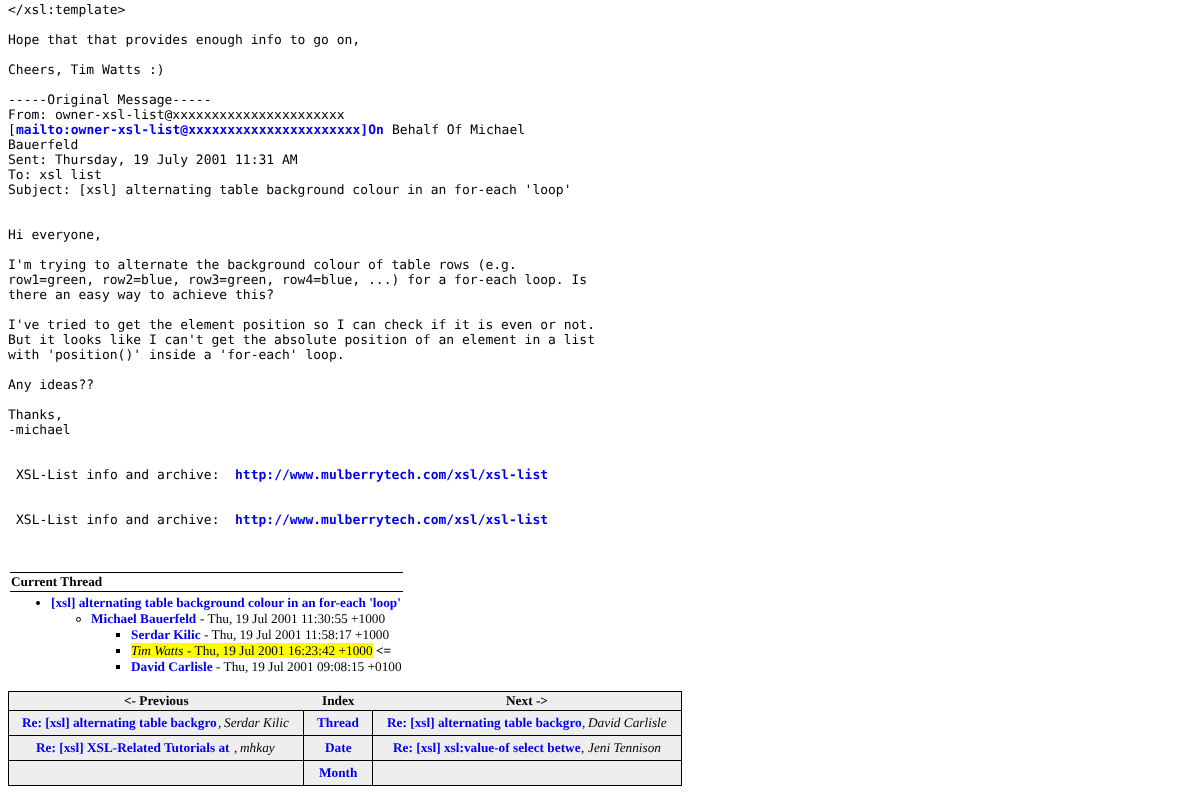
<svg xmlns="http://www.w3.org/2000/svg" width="1177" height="802">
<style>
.a{font:13px DejaVu Sans Mono;fill:#000}
.b{font:bold 13px DejaVu Sans Mono;fill:#00e}
.c{font:bold 13.3px Liberation Serif;fill:#000}
.d{font:bold 13.3px Liberation Serif;fill:#00e}
.e{font:13.3px Liberation Serif;fill:#000}
.f{font:italic 13.3px Liberation Serif;fill:#000}
</style>
<rect width="100%" height="100%" fill="#fff"/>
<path fill="#000" d="M10 572h393v1H10z"/>
<path fill="#000" d="M10 591h393v1H10z"/>
<circle fill="#000" cx="38" cy="603" r="2"/>
<circle fill="none" stroke="#000" cx="78.5" cy="619.5" r="2"/>
<path fill="#000" d="M116 633h4v4H116z"/>
<path fill="#000" d="M116 649h4v4H116z"/>
<path fill="#ff0" d="M131 643h242v15H131z"/>
<path fill="#000" d="M116 665h4v4H116z"/>
<path fill="#eee" d="M9 692h672v93H9z"/>
<path fill="#000" d="M8 691h674v1H8z"/>
<path fill="#000" d="M681 691h1v95H681z"/>
<path fill="#000" d="M8 785h674v1H8z"/>
<path fill="#000" d="M8 691h1v95H8z"/>
<path fill="#000" d="M8 710h674v1H8z"/>
<path fill="#000" d="M8 735h674v1H8z"/>
<path fill="#000" d="M8 760h674v1H8z"/>
<path fill="#000" d="M303 760h1v26H303z"/>
<path fill="#000" d="M303 735h1v26H303z"/>
<path fill="#000" d="M303 710h1v26H303z"/>
<path fill="#000" d="M372 760h1v26H372z"/>
<path fill="#000" d="M372 735h1v26H372z"/>
<path fill="#000" d="M372 710h1v26H372z"/>
<text class="a" x="8" y="14">&lt;/xsl:template&gt;</text>
<text class="a" x="8" y="44">Hope that that provides enough info to go on,</text>
<text class="a" x="8" y="74">Cheers, Tim Watts :)</text>
<text class="a" x="8" y="104">-----Original Message-----</text>
<text class="a" x="8" y="119">From: owner-xsl-list@xxxxxxxxxxxxxxxxxxxxxx</text>
<text class="a" x="8" y="134">[</text>
<text class="b" x="16" y="134">mailto:owner-xsl-list@xxxxxxxxxxxxxxxxxxxxxx]On</text>
<text class="a" x="392" y="134">Behalf Of Michael</text>
<text class="a" x="8" y="149">Bauerfeld</text>
<text class="a" x="8" y="164">Sent: Thursday, 19 July 2001 11:31 AM</text>
<text class="a" x="8" y="179">To: xsl list</text>
<text class="a" x="8" y="194">Subject: [xsl] alternating table background colour in an for-each 'loop'</text>
<text class="a" x="8" y="239">Hi everyone,</text>
<text class="a" x="8" y="269">I'm trying to alternate the background colour of table rows (e.g.</text>
<text class="a" x="8" y="284">row1=green, row2=blue, row3=green, row4=blue, ...) for a for-each loop. Is</text>
<text class="a" x="8" y="299">there an easy way to achieve this?</text>
<text class="a" x="8" y="329">I've tried to get the element position so I can check if it is even or not.</text>
<text class="a" x="8" y="344">But it looks like I can't get the absolute position of an element in a list</text>
<text class="a" x="8" y="359">with 'position()' inside a 'for-each' loop.</text>
<text class="a" x="8" y="389">Any ideas??</text>
<text class="a" x="8" y="419">Thanks,</text>
<text class="a" x="8" y="434">-michael</text>
<text class="a" x="16" y="479">XSL-List info and archive:</text>
<text class="b" x="235" y="479">http://www.mulberrytech.com/xsl/xsl-list</text>
<text class="a" x="16" y="524">XSL-List info and archive:</text>
<text class="b" x="235" y="524">http://www.mulberrytech.com/xsl/xsl-list</text>
<text class="c" x="11" y="586">Current Thread</text>
<text class="d" x="51" y="607">[xsl] alternating table background colour in an for-each 'loop'</text>
<text class="d" x="91" y="623">Michael Bauerfeld</text>
<text class="e" x="200" y="623">- Thu, 19 Jul 2001 11:30:55 +1000</text>
<text class="d" x="131" y="639">Serdar Kilic</text>
<text class="e" x="204" y="639">- Thu, 19 Jul 2001 11:58:17 +1000</text>
<text class="f" x="131" y="655">Tim Watts</text>
<text class="e" x="187" y="655">- Thu, 19 Jul 2001 16:23:42 +1000</text>
<text class="c" x="376" y="655">&lt;=</text>
<text class="d" x="131" y="671">David Carlisle</text>
<text class="e" x="216" y="671">- Thu, 19 Jul 2001 09:08:15 +0100</text>
<text class="c" x="124" y="705">&lt;- Previous</text>
<text class="c" x="322" y="705">Index</text>
<text class="c" x="506" y="705">Next -&gt;</text>
<text class="d" x="22" y="727">Re: [xsl] alternating table backgro</text>
<text class="e" x="218" y="727">,</text>
<text class="f" x="224" y="727">Serdar Kilic</text>
<text class="d" x="317" y="727">Thread</text>
<text class="d" x="387" y="727">Re: [xsl] alternating table backgro</text>
<text class="e" x="582" y="727">,</text>
<text class="f" x="588" y="727">David Carlisle</text>
<text class="d" x="36" y="752">Re: [xsl] XSL-Related Tutorials at</text>
<text class="e" x="234" y="752">,</text>
<text class="f" x="240" y="752">mhkay</text>
<text class="d" x="325" y="752">Date</text>
<text class="d" x="393" y="752">Re: [xsl] xsl:value-of select betwe</text>
<text class="e" x="581" y="752">,</text>
<text class="f" x="588" y="752">Jeni Tennison</text>
<text class="d" x="319" y="777">Month</text>
</svg>
